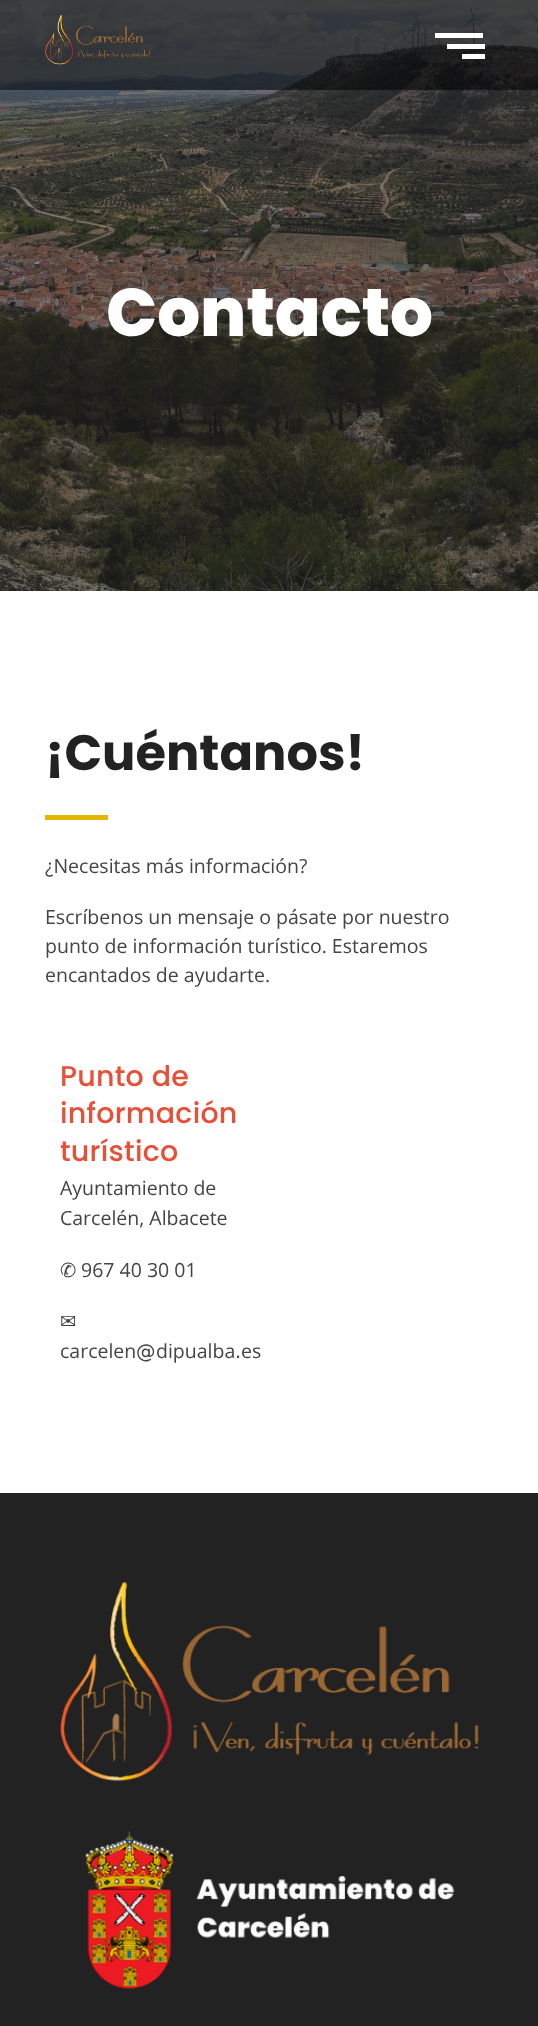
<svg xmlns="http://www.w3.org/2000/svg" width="538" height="2026">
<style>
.a{font:800 67.5px Poppins;fill:#fff}
.b{font:bold 49.5px Poppins;fill:#222}
.c{font:19.5px Open Sans;fill:#444}
.d{font:500 28.5px Poppins;letter-spacing:0.25px;fill:#e94f37}
.e{font:19.5px DejaVu Sans;fill:#444}
</style>
<rect width="100%" height="100%" fill="#fff"/>
<image href="2.png" x="0" y="0" width="538" height="591"/>
<path fill="#00000087" d="M0 0h538v90H0z"/>
<image href="1.png" x="45" y="15" width="105" height="50"/>
<path fill="#fff" d="M435 33h48v5H435z"/>
<path fill="#fff" d="M447 44h38v5H447z"/>
<path fill="#fff" d="M462 54h23v5H462z"/>
<path fill="#e3b505" d="M45 815h63v5H45z"/>
<path fill="#222" d="M0 1493h538v533H0z"/>
<image href="3.png" x="60" y="1582" width="419" height="199"/>
<image href="4.png" x="85" y="1831" width="370" height="158"/>
<text class="a" x="106" y="336">Contacto</text>
<text class="b" x="45" y="770">¡Cuéntanos!</text>
<text class="c" x="45" y="873">¿Necesitas más información?</text>
<text class="c" x="45" y="924">Escríbenos un mensaje o pásate por nuestro</text>
<text class="c" x="45" y="953">punto de información turístico. Estaremos</text>
<text class="c" x="45" y="982">encantados de ayudarte.</text>
<text class="d" x="60" y="1086">Punto de</text>
<text class="d" x="60" y="1123">información</text>
<text class="d" x="60" y="1161">turístico</text>
<text class="c" x="60" y="1195">Ayuntamiento de</text>
<text class="c" x="60" y="1225">Carcelén, Albacete</text>
<text class="e" x="60" y="1277">✆</text>
<text class="c" x="81" y="1277">967 40 30 01</text>
<text class="e" x="60" y="1328">✉</text>
<text class="c" x="60" y="1358">carcelen</text>
<text class="e" x="136" y="1358">@</text>
<text class="c" x="156" y="1358">dipualba</text>
<text class="e" x="235" y="1358">.</text>
<text class="c" x="241" y="1358">es</text>
</svg>
